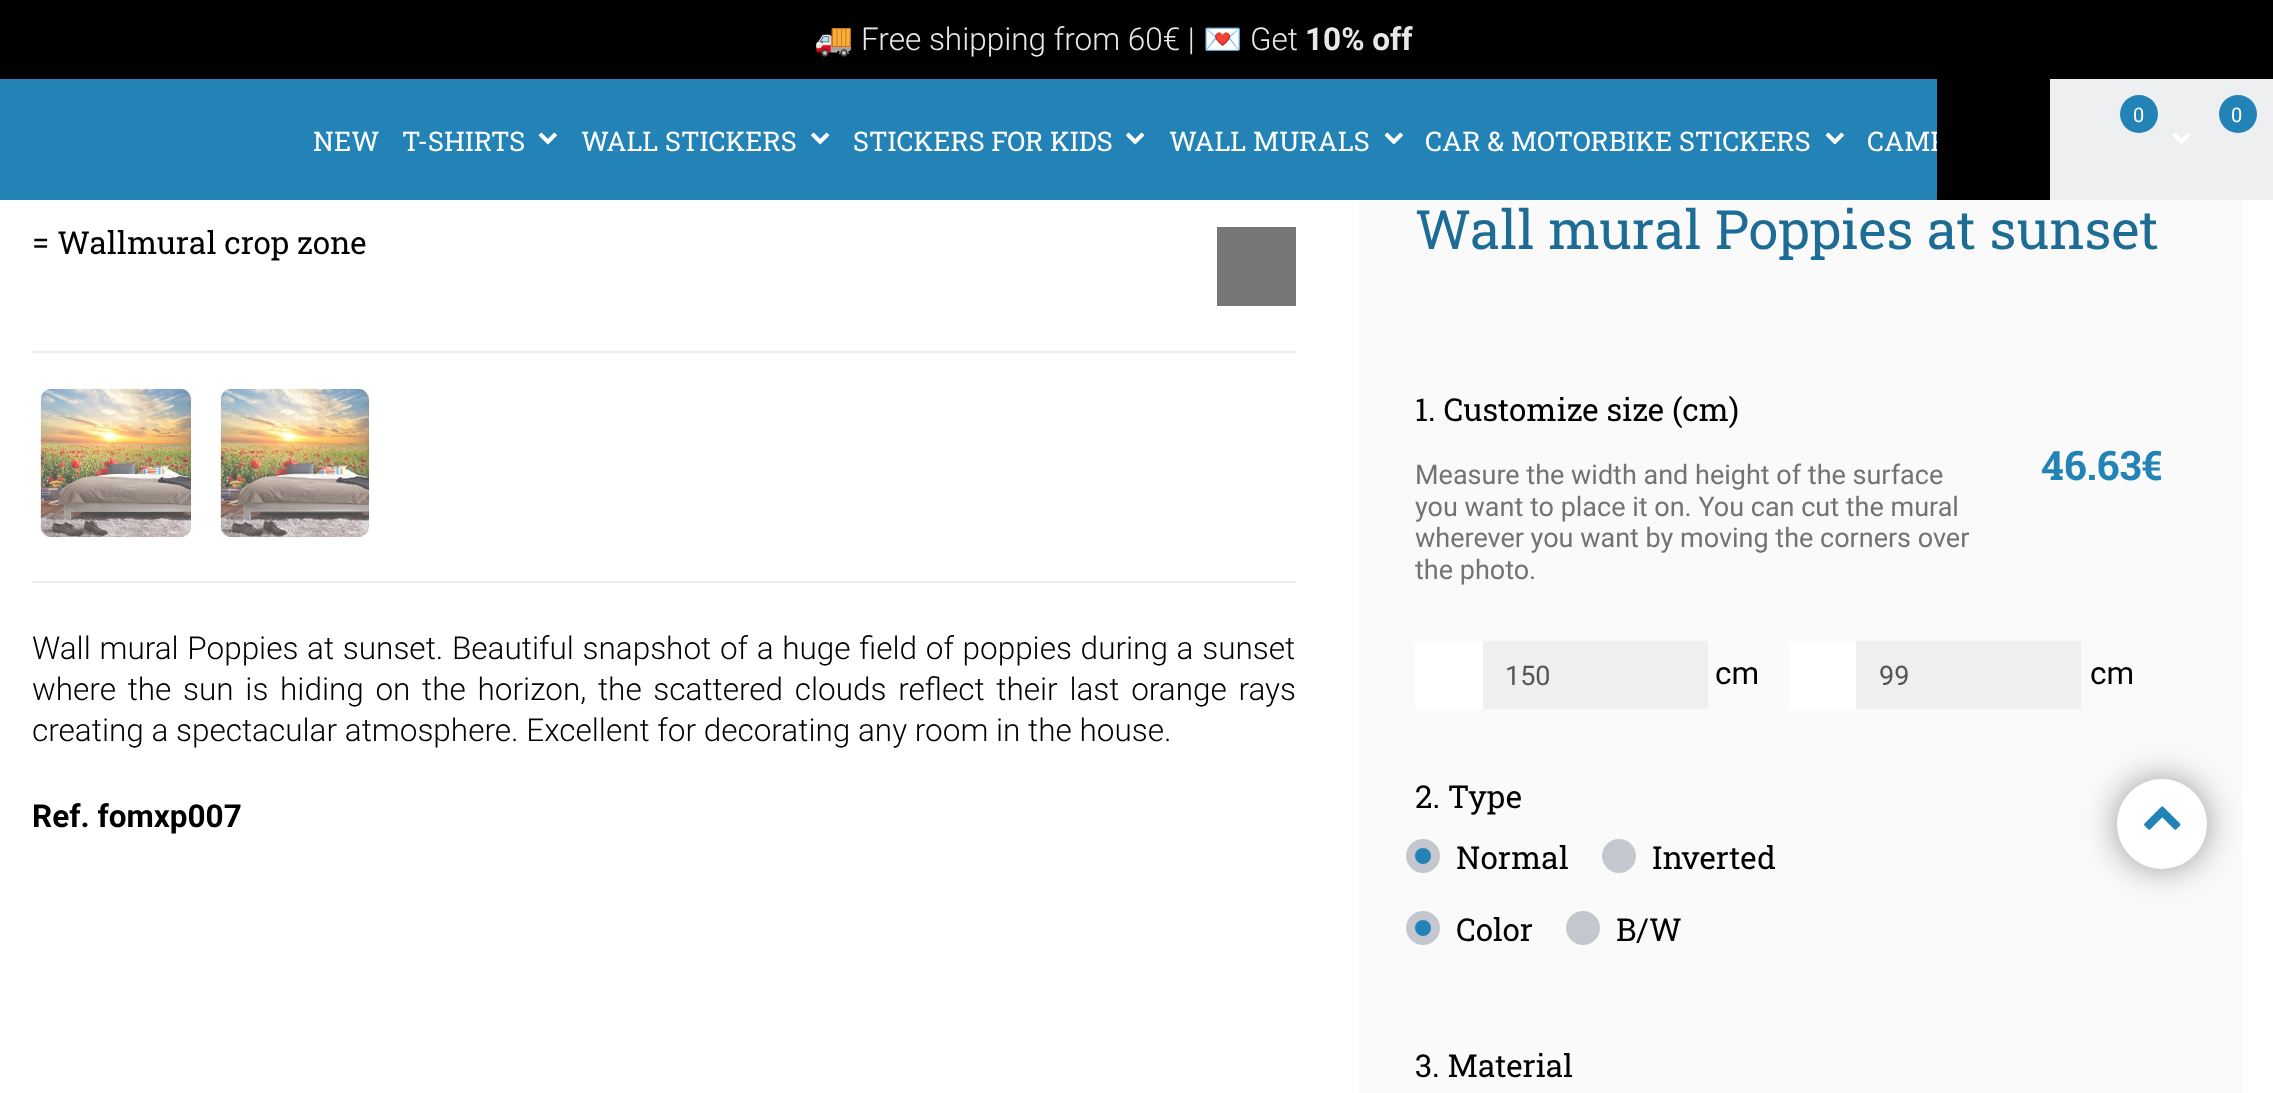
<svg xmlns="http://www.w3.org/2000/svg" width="2273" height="1093">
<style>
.a{font:31.5px Noto Color Emoji;fill:#ebe7e8}
.b{font:300 31.5px Roboto;fill:#ebe7e8}
.c{font:bold 31.5px Roboto;fill:#ebe7e8}
.d{font:20px Roboto;fill:#fff}
.e{font:27px Roboto Slab;fill:#fff}
.f{font:31.5px Roboto Slab;fill:#000}
.g{font:300 31.5px Roboto;fill:#000}
.h{font:bold 31.5px Roboto;fill:#000}
.i{font:54px Roboto Slab;fill:#1d6c95}
.j{font:27px Roboto;fill:#737373}
.k{font:bold 40.5px Roboto Slab;fill:#2383b6}
.l{font:27px Roboto;fill:#555}
.m{font:31.5px Roboto;fill:#000}
</style>
<rect width="100%" height="100%" fill="#fff"/>
<path fill="#000" d="M0 0h2273v79H0z"/>
<path fill="#eeeff1" d="M2050 79h223v121H2050z"/>
<circle fill="#2383b6" cx="2139" cy="114" r="19"/>
<circle fill="#2383b6" cx="2238" cy="114" r="19"/>
<path fill="#2383b6" d="M0 79h1937v121H0z"/>
<image href="1.png" x="538" y="132" width="19" height="13"/>
<image href="2.png" x="811" y="132" width="19" height="13"/>
<image href="2.png" x="1126" y="132" width="19" height="13"/>
<image href="1.png" x="1384" y="132" width="19" height="13"/>
<image href="1.png" x="1825" y="132" width="19" height="13"/>
<image href="3.png" x="2172" y="133" width="19" height="12"/>
<path fill="#777" d="M1217 227h79v79H1217z"/>
<path fill="#eee" d="M32 351h1264v2H32z"/>
<path fill="#eee" d="M32 581h1264v2H32z"/>
<image href="4.png" x="40" y="388" width="151" height="150"/>
<image href="5.png" x="220" y="388" width="149" height="150"/>
<path fill="#fafafa" d="M1359 200h884v893H1359z"/>
<path fill="#fff" d="M1415 641h68v68H1415z"/>
<path fill="#eeeff1" d="M1483 641h225v68H1483z"/>
<path fill="#fff" d="M1789 641h67v68H1789z"/>
<path fill="#eeeff1" d="M1856 641h225v68H1856z"/>
<circle fill="#c4c8ce" cx="1423" cy="856" r="17"/>
<circle fill="#2383b6" cx="1423" cy="856" r="8"/>
<circle fill="#c4c8ce" cx="1619" cy="856" r="17"/>
<circle fill="#c4c8ce" cx="1423" cy="928" r="17"/>
<circle fill="#2383b6" cx="1423" cy="928" r="8"/>
<circle fill="#c4c8ce" cx="1583" cy="928" r="17"/>
<rect fill="#00000066" filter="blur(17px)" x="2117" y="779" width="90" height="90" rx="45"/>
<circle fill="#fff" cx="2162" cy="824" r="45"/>
<image href="6.png" x="2144" y="806" width="37" height="24"/>
<text class="a" x="814" y="50">🚚</text>
<text class="b" x="861" y="50">Free shipping from 60€ |</text>
<text class="a" x="1203" y="50">💌</text>
<text class="b" x="1250" y="50">Get</text>
<text class="c" x="1305" y="50">10% off</text>
<text class="d" x="2133" y="122">0</text>
<text class="d" x="2231" y="122">0</text>
<text class="e" x="313" y="151">NEW</text>
<text class="e" x="402" y="151">T-SHIRTS</text>
<text class="e" x="581" y="151">WALL STICKERS</text>
<text class="e" x="853" y="151">STICKERS FOR KIDS</text>
<text class="e" x="1169" y="151">WALL MURALS</text>
<text class="e" x="1425" y="151">CAR &amp; MOTORBIKE STICKERS</text>
<text class="e" x="1867" y="151">CAMP</text>
<path fill="#000" d="M1937 79h113v121H1937z"/>
<text class="f" x="32" y="254">= Wallmural crop zone</text>
<text class="g" x="32" y="659" word-spacing="1">Wall mural Poppies at sunset. Beautiful snapshot of a huge field of poppies during a sunset</text>
<text class="g" x="32" y="700" word-spacing="4">where the sun is hiding on the horizon, the scattered clouds reflect their last orange rays</text>
<text class="g" x="32" y="741">creating a spectacular atmosphere. Excellent for decorating any room in the house.</text>
<text class="h" x="32" y="827">Ref. fomxp007</text>
<text class="i" x="1415" y="249">Wall mural Poppies at sunset</text>
<text class="f" x="1415" y="421">1. Customize size (cm)</text>
<text class="j" x="1415" y="484">Measure the width and height of the surface</text>
<text class="j" x="1415" y="516">you want to place it on. You can cut the mural</text>
<text class="j" x="1415" y="547">wherever you want by moving the corners over</text>
<text class="j" x="1415" y="579">the photo.</text>
<text class="k" x="2041" y="480">46.63€</text>
<text class="l" x="1505" y="685">150</text>
<text class="m" x="1715" y="684">cm</text>
<text class="l" x="1879" y="685">99</text>
<text class="m" x="2090" y="684">cm</text>
<text class="f" x="1415" y="808">2. Type</text>
<text class="f" x="1456" y="869">Normal</text>
<text class="f" x="1652" y="869">Inverted</text>
<text class="f" x="1456" y="941">Color</text>
<text class="f" x="1616" y="941">B/W</text>
<text class="f" x="1415" y="1077">3. Material</text>
</svg>
